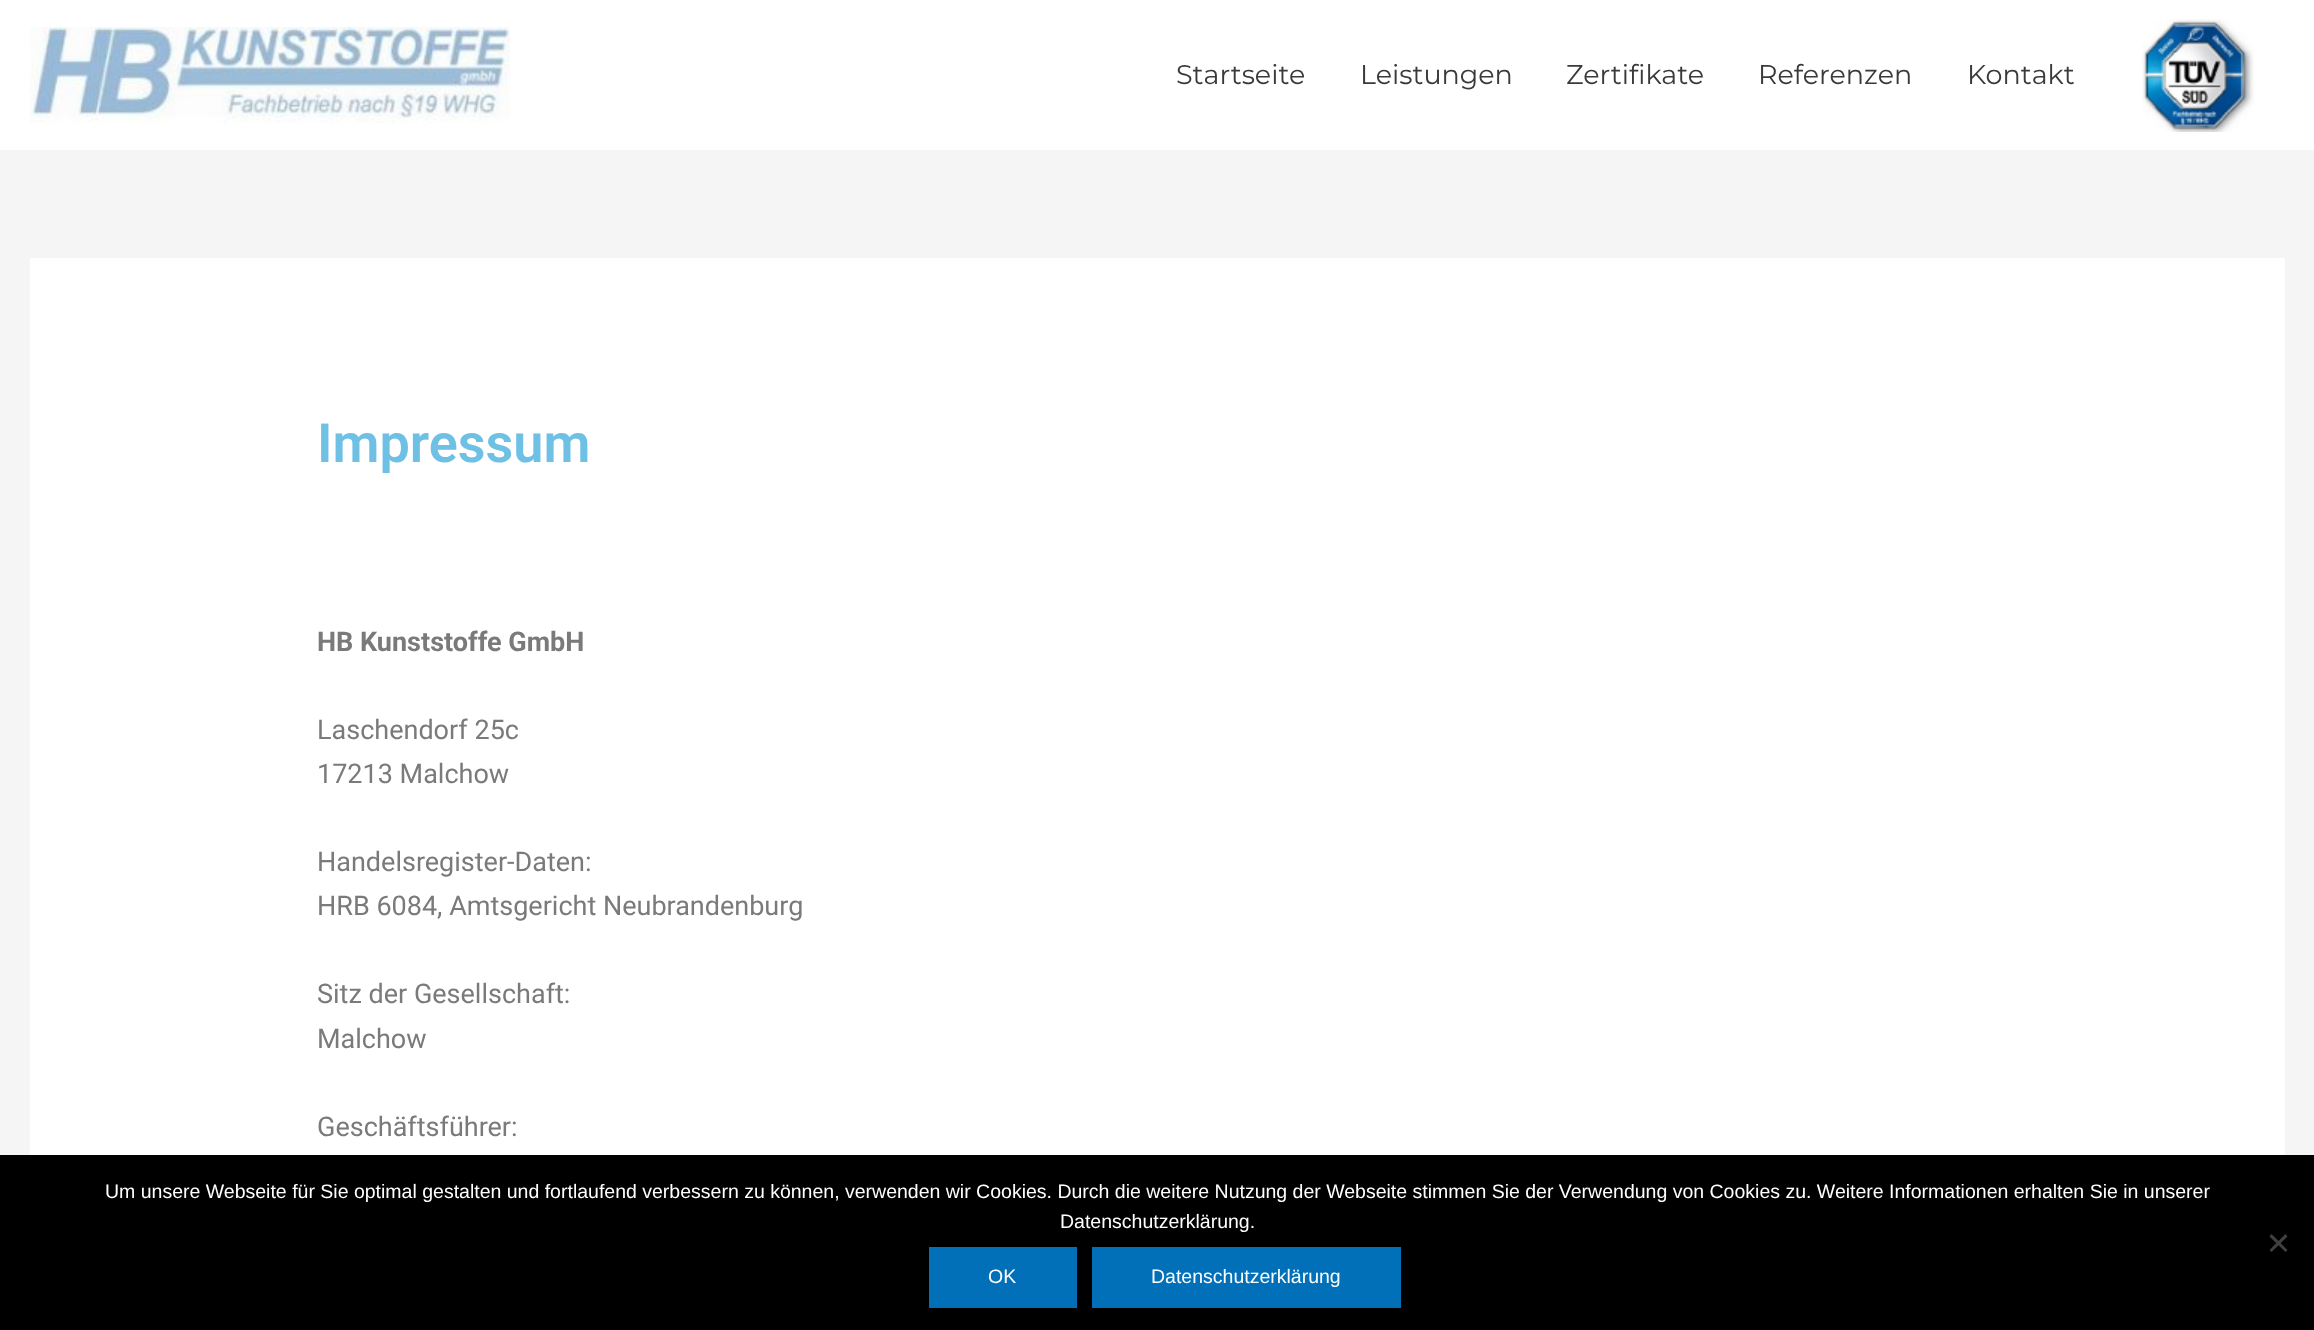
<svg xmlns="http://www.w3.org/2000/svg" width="2314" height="1330">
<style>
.a{font:100 27px Montserrat;fill:#3a3a3a}
.b{font:600 54px Roboto;fill:#6ec1e4}
.c{font:bold 27px Roboto;fill:#7a7a7a}
.d{font:27px Roboto;fill:#7a7a7a}
.e{font:19.5px Liberation Sans;fill:#fff}
</style>
<rect width="100%" height="100%" fill="#f5f5f5"/>
<path fill="#fff" d="M0 0h2314v150H0z"/>
<image href="1.png" x="30" y="27" width="480" height="96"/>
<image href="2.png" x="2142" y="19" width="112" height="113"/>
<path fill="#fff" d="M30 258h2255v897H30z"/>
<path fill="#000" d="M0 1155h2314v175H0z"/>
<path fill="#404040" d="M2285.5 1234l2 2.5l-16 15.5l-2-2z"/>
<path fill="#404040" d="M2269.5 1236.5l2-2.5l16 16l-2 2z"/>
<path fill="#0170b9" d="M929 1247h148v61H929z"/>
<path fill="#0170b9" d="M1092 1247h309v61H1092z"/>
<text class="a" x="1176" y="84">Startseite</text>
<text class="a" x="1360" y="84">Leistungen</text>
<text class="a" x="1566" y="84">Zertifikate</text>
<text class="a" x="1758" y="84">Referenzen</text>
<text class="a" x="1967" y="84">Kontakt</text>
<text class="b" x="317" y="462">Impressum</text>
<text class="c" x="317" y="651">HB Kunststoffe GmbH</text>
<text class="d" x="317" y="739">Laschendorf 25c</text>
<text class="d" x="317" y="783">17213 Malchow</text>
<text class="d" x="317" y="871">Handelsregister-Daten:</text>
<text class="d" x="317" y="915">HRB 6084, Amtsgericht Neubrandenburg</text>
<text class="d" x="317" y="1003">Sitz der Gesellschaft:</text>
<text class="d" x="317" y="1048">Malchow</text>
<text class="d" x="317" y="1136">Geschäftsführer:</text>
<text class="e" x="105" y="1198">Um unsere Webseite für Sie optimal gestalten und fortlaufend verbessern zu können, verwenden wir Cookies. Durch die weitere Nutzung der Webseite stimmen Sie der Verwendung von Cookies zu. Weitere Informationen erhalten Sie in unserer</text>
<text class="e" x="1060" y="1228">Datenschutzerklärung.</text>
<text class="e" x="988" y="1283">OK</text>
<text class="e" x="1151" y="1283">Datenschutzerklärung</text>
</svg>
